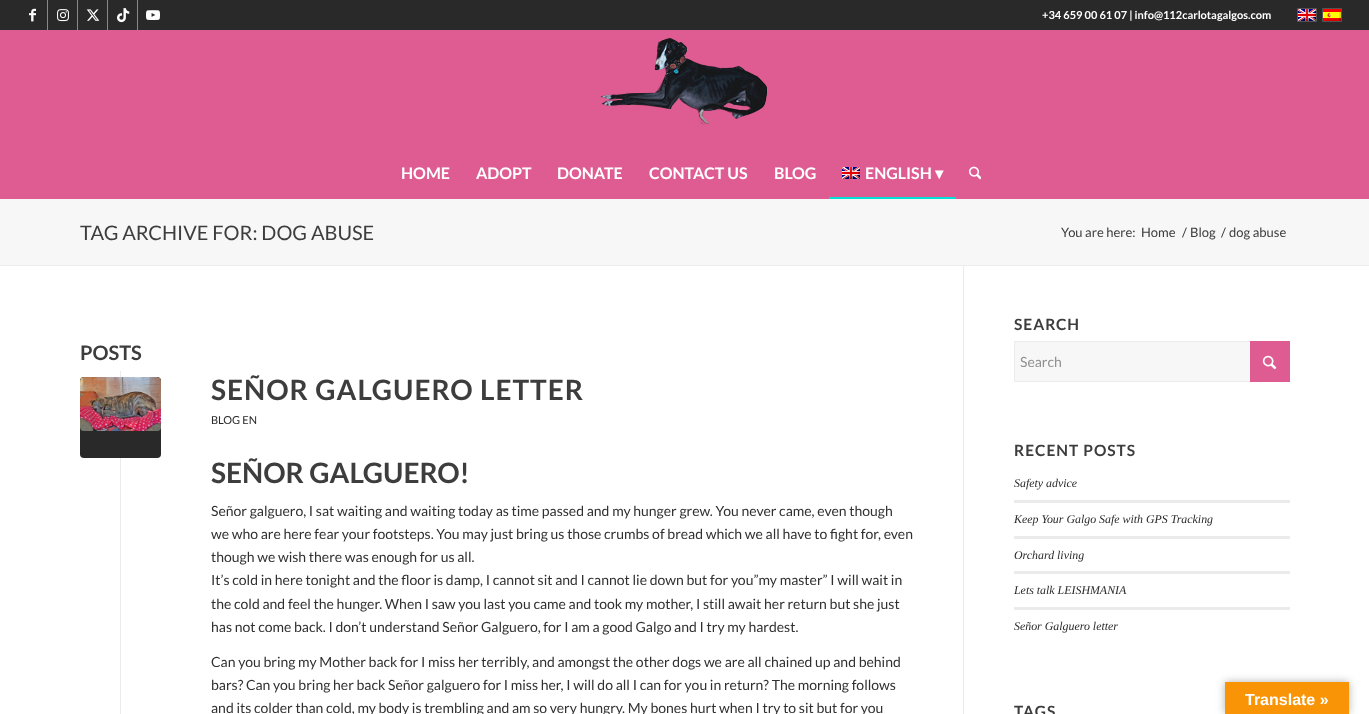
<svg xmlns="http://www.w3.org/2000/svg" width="1369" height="714">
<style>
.a{font:bold 11px Lato;fill:#fff}
.b{font:bold 16px Lato;fill:#fff}
.c{font:bold 16px DejaVu Sans;fill:#fff}
.d{font:20px Lato;fill:#3d3d3d}
.e{font:13px Lato;fill:#3d3d3d}
.f{font:bold 20px Lato;fill:#3d3d3d}
.g{font:bold 28px Lato;letter-spacing:1px;fill:#3d3d3d}
.h{font:11px Lato;fill:#292929}
.i{font:bold 28px Lato;fill:#3d3d3d}
.j{font:14px Lato;fill:#303030}
.k{font:bold 15.5px Lato;letter-spacing:1px;fill:#3d3d3d}
.l{font:14px Lato;fill:#909090}
.m{font:italic 11.9px Liberation Serif;fill:#292929}
.n{font:bold 16px Liberation Sans;fill:#fff}
</style>
<rect width="100%" height="100%" fill="#df5c92"/>
<path fill="#292929" d="M0 0h1369v30H0z"/>
<path fill="#df5c92" d="M47 0h1v30H47z"/>
<image href="1.png" x="29" y="8" width="7" height="14"/>
<path fill="#df5c92" d="M77 0h1v30H77z"/>
<image href="2.png" x="57" y="9" width="12" height="13"/>
<path fill="#df5c92" d="M107 0h1v30H107z"/>
<image href="3.png" x="86" y="9" width="14" height="12"/>
<path fill="#df5c92" d="M137 0h1v30H137z"/>
<image href="4.png" x="117" y="8" width="13" height="15"/>
<image href="5.png" x="146" y="10" width="14" height="10"/>
<path fill="none" stroke="#545454" d="M1297.5 8.5h19v13H1297.5z"/>
<image href="6.png" x="1298" y="9" width="18" height="12"/>
<path fill="none" stroke="#545454" d="M1322.5 8.5h19v13H1322.5z"/>
<image href="7.png" x="1323" y="9" width="18" height="12"/>
<image href="8.png" x="600" y="38" width="167" height="87"/>
<image href="6.png" x="842" y="167" width="18" height="12"/>
<path fill="#03e0d5" d="M829 197h127v2H829z"/>
<image href="9.png" x="969" y="166" width="12" height="14"/>
<path fill="#f7f7f7" d="M0 199h1369v66H0z"/>
<path fill="#fff" d="M0 266h1369v448H0z"/>
<path fill="#ebebeb" d="M0 265h1369v1H0z"/>
<path fill="#ebebeb" d="M963 266h1v448H963z"/>
<path fill="#ebebeb" d="M120 371h1v343H120z"/>
<rect fill="#292929" x="80" y="377" width="81" height="81" rx="4"/>
<image href="10.png" x="80" y="377" width="81" height="54"/>
<path fill="#f7f7f7" d="M1015 342h235v39H1015z"/>
<path fill="none" stroke="#ebebeb" d="M1014.5 341.5h275v40H1014.5z"/>
<path fill="#df5c92" d="M1250 341h40v41H1250z"/>
<image href="11.png" x="1262" y="355" width="15" height="15"/>
<path fill="#ebebeb" d="M1014 500h276v3H1014z"/>
<path fill="#ebebeb" d="M1014 536h276v3H1014z"/>
<path fill="#ebebeb" d="M1014 571h276v3H1014z"/>
<path fill="#ebebeb" d="M1014 607h276v3H1014z"/>
<path fill="#0000004d" filter="blur(4.5px)" d="M1225 682h124v32H1225z"/>
<path fill="#f89406" d="M1225 682h124v32H1225z"/>
<text class="a" x="1042" y="19">+34 659 00 61 07 | info@112carlotagalgos.com</text>
<text class="b" x="401" y="179">HOME</text>
<text class="b" x="476" y="179">ADOPT</text>
<text class="b" x="557" y="179">DONATE</text>
<text class="b" x="649" y="179">CONTACT US</text>
<text class="b" x="774" y="179">BLOG</text>
<text class="b" x="865" y="179">ENGLISH</text>
<text class="c" x="935" y="179">▾</text>
<text class="d" x="80" y="240">TAG ARCHIVE FOR: DOG ABUSE</text>
<text class="e" x="1061" y="237">You are here:</text>
<text class="e" x="1141" y="237">Home</text>
<text class="e" x="1182" y="237">/</text>
<text class="e" x="1190" y="237">Blog</text>
<text class="e" x="1221" y="237">/</text>
<text class="e" x="1229" y="237">dog abuse</text>
<text class="f" x="80" y="360">POSTS</text>
<text class="g" x="211" y="400">SEÑOR GALGUERO LETTER</text>
<text class="h" x="211" y="424">BLOG EN</text>
<text class="i" x="211" y="483">SEÑOR GALGUERO!</text>
<text class="j" x="211" y="516">Señor galguero, I sat waiting and waiting today as time passed and my hunger grew. You never came, even though</text>
<text class="j" x="211" y="539">we who are here fear your footsteps. You may just bring us those crumbs of bread which we all have to fight for, even</text>
<text class="j" x="211" y="562">though we wish there was enough for us all.</text>
<text class="j" x="211" y="585">It’s cold in here tonight and the floor is damp, I cannot sit and I cannot lie down but for you”my master” I will wait in</text>
<text class="j" x="211" y="609">the cold and feel the hunger. When I saw you last you came and took my mother, I still await her return but she just</text>
<text class="j" x="211" y="632">has not come back. I don’t understand Señor Galguero, for I am a good Galgo and I try my hardest.</text>
<text class="j" x="211" y="667">Can you bring my Mother back for I miss her terribly, and amongst the other dogs we are all chained up and behind</text>
<text class="j" x="211" y="690">bars? Can you bring her back Señor galguero for I miss her, I will do all I can for you in return? The morning follows</text>
<text class="j" x="211" y="713">and its colder than cold, my body is trembling and am so very hungry. My bones hurt when I try to sit but for you</text>
<text class="k" x="1014" y="330">SEARCH</text>
<text class="l" x="1020" y="367">Search</text>
<text class="k" x="1014" y="456">RECENT POSTS</text>
<text class="m" x="1014" y="487">Safety advice</text>
<text class="m" x="1014" y="523">Keep Your Galgo Safe with GPS Tracking</text>
<text class="m" x="1014" y="559">Orchard living</text>
<text class="m" x="1014" y="594">Lets talk LEISHMANIA</text>
<text class="m" x="1014" y="630">Señor Galguero letter</text>
<text class="k" x="1014" y="717">TAGS</text>
<text class="n" x="1245" y="705">Translate »</text>
</svg>
